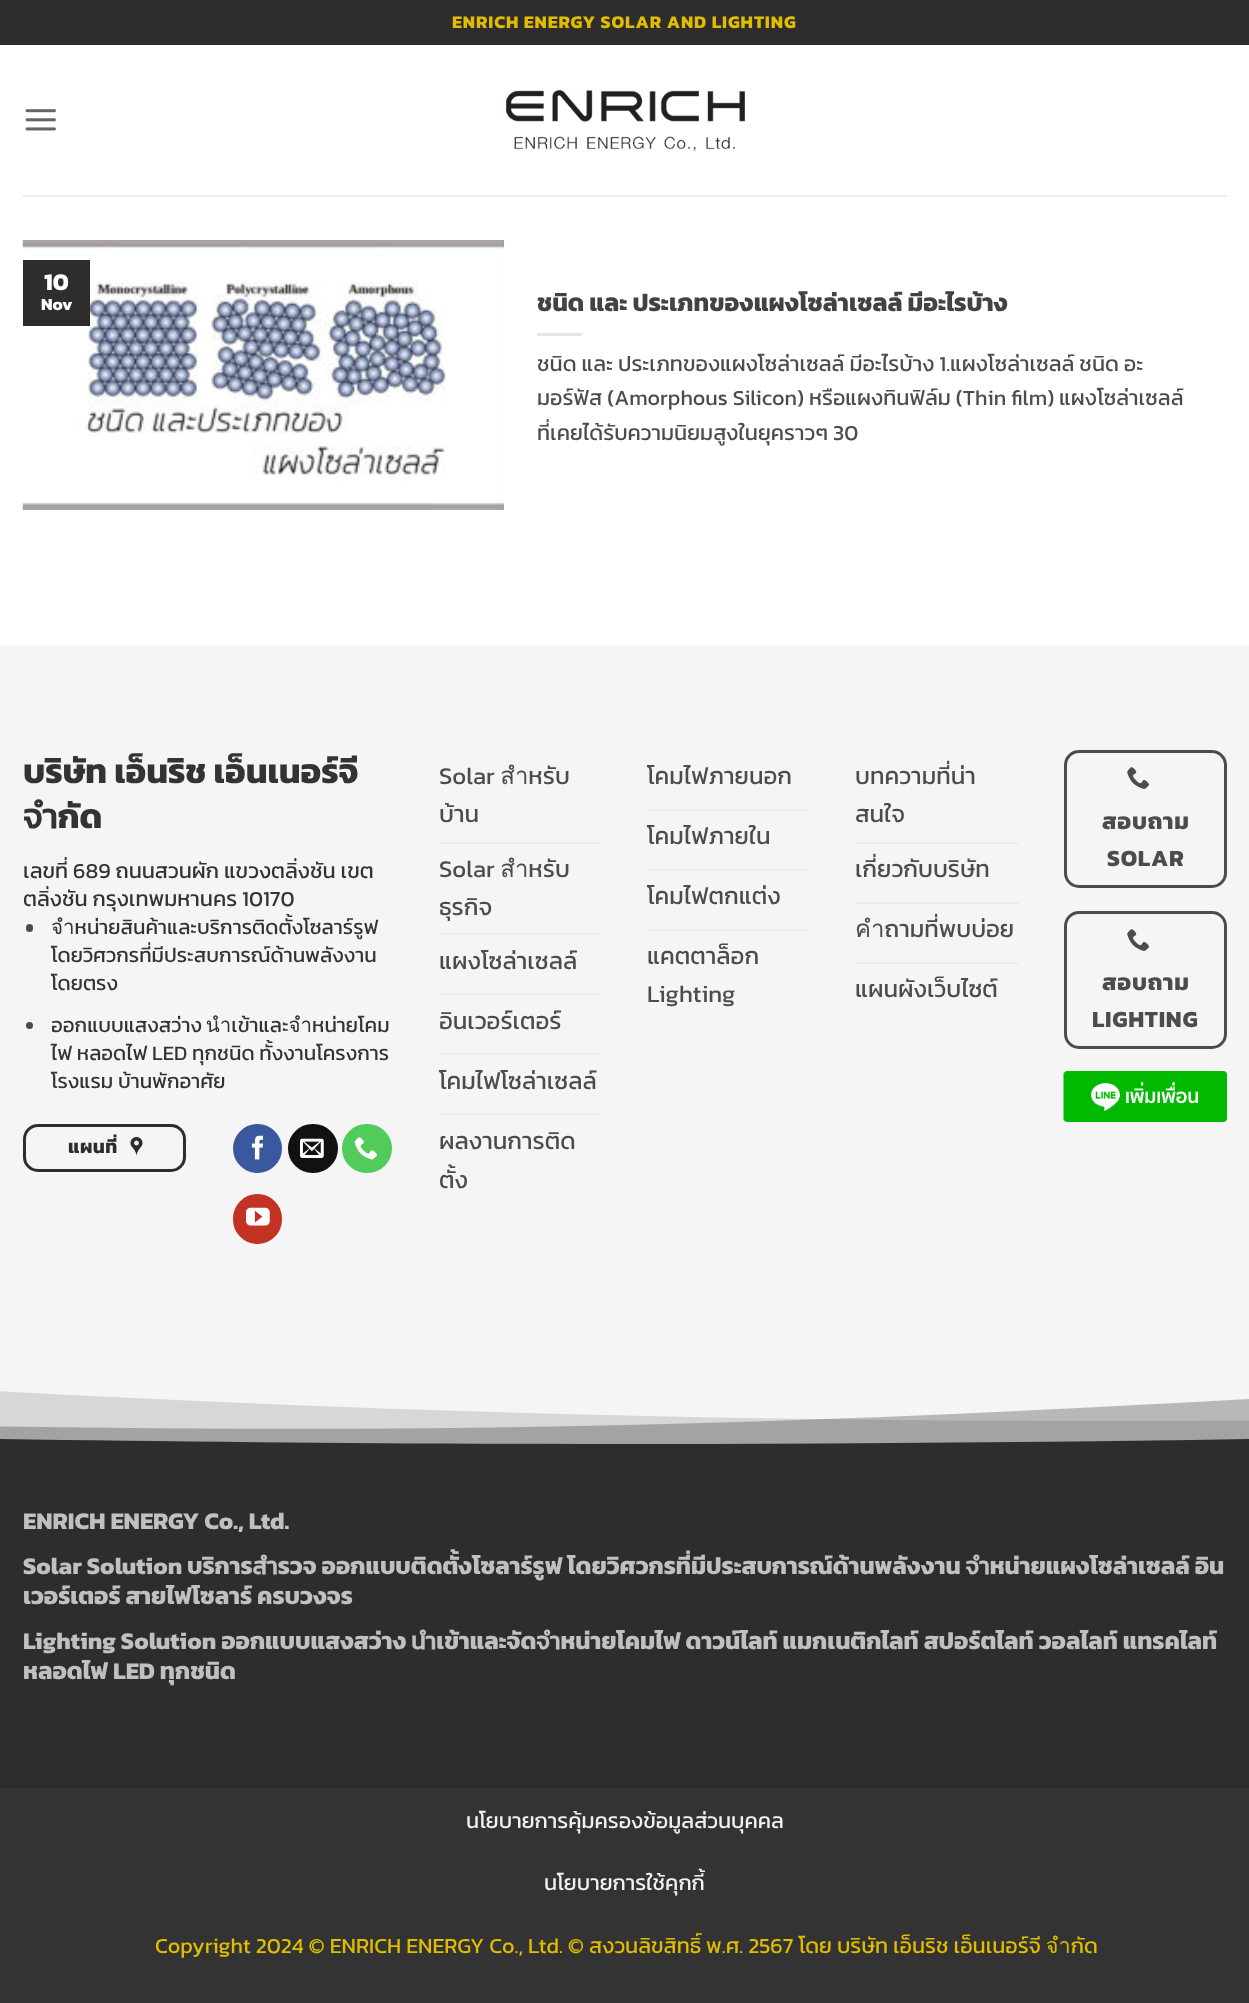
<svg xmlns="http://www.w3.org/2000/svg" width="1249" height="2003">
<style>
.a{font:bold 18px Kanit;letter-spacing:0.9px;fill:#e0bd00}
.b{font:bold 24px Kanit;fill:#fff}
.c{font:bold 17px Kanit;fill:#fff}
.d{font:bold 24.8px Kanit;fill:#424242}
.e{font:21.6px Kanit;fill:#4c4c4c}
.f{font:bold 34.5px Kanit;fill:#333}
.g{font:21.6px Kanit;fill:#333}
.h{font:20.5px Kanit;fill:#333}
.i{font:bold 19px Kanit;letter-spacing:0.5px;fill:#2f2c2c}
.j{font:24px Kanit;fill:#4c4c4c}
.k{font:bold 23.25px Kanit;letter-spacing:0.75px;fill:#4c4c4c}
.l{font:bold 24px Kanit;fill:#c0c0c0}
.m{font:21.6px Kanit;fill:#f1f1f1}
.n{font:21.6px Kanit;fill:#e0bd00}
</style>
<rect width="100%" height="100%" fill="#fff"/>
<path fill="#2f2c2c" d="M0 0h1249v45H0z"/>
<image href="1.png" x="25" y="109" width="31" height="22"/>
<image href="2.png" x="506" y="90" width="239" height="61"/>
<path fill="#ededed" d="M23 195h1204v2H23z"/>
<image href="3.png" x="22" y="240" width="482" height="270"/>
<path fill="#2f2c2c" d="M23 260h67v66H23z"/>
<path fill="#e6e6e6" d="M537 333h45v3H537z"/>
<path fill="#f5f5f5" d="M0 645h1249v799H0z"/>
<rect fill="#4c4c4c" x="26" y="924" width="7" height="8" rx="3.5"/>
<circle fill="#4c4c4c" cx="29.5" cy="1025.5" r="3.5"/>
<rect fill="none" stroke="#2f2c2c" stroke-width="3" x="24.5" y="1125.5" width="160" height="45" rx="13.5"/>
<image href="4.png" x="130" y="1137" width="13" height="19"/>
<circle fill="#3a589d" stroke="#3a589d" stroke-width="2" cx="257.5" cy="1148.5" r="23.5"/>
<image href="5.png" x="251" y="1135" width="12" height="25"/>
<rect fill="#111" stroke="#111" stroke-width="2" x="289" y="1125" width="48" height="47" rx="23.5"/>
<image href="6.png" x="300" y="1138" width="24" height="20"/>
<rect fill="#51cb5a" stroke="#51cb5a" stroke-width="2" x="343" y="1125" width="48" height="47" rx="23.5"/>
<image href="7.png" x="354" y="1137" width="23" height="23"/>
<rect fill="#c33223" stroke="#c33223" stroke-width="2" x="234" y="1195" width="47" height="48" rx="23.5"/>
<image href="8.png" x="246" y="1207" width="24" height="19"/>
<path fill="#ececec" d="M440 842h162v2H440z"/>
<path fill="#ececec" d="M440 933h162v2H440z"/>
<path fill="#ececec" d="M440 993h162v2H440z"/>
<path fill="#ececec" d="M440 1053h162v2H440z"/>
<path fill="#ececec" d="M440 1113h162v2H440z"/>
<path fill="#ececec" d="M647 809h163v2H647z"/>
<path fill="#ececec" d="M647 869h163v2H647z"/>
<path fill="#ececec" d="M647 929h163v2H647z"/>
<path fill="#ececec" d="M855 842h164v2H855z"/>
<path fill="#ececec" d="M855 902h164v2H855z"/>
<path fill="#ececec" d="M855 962h164v2H855z"/>
<rect fill="none" stroke="#4c4c4c" stroke-width="3" x="1065.5" y="751.5" width="160" height="135" rx="13.5"/>
<image href="9.png" x="1127" y="767" width="22" height="22"/>
<rect fill="none" stroke="#4c4c4c" stroke-width="3" x="1065.5" y="912.5" width="160" height="135" rx="13.5"/>
<image href="9.png" x="1127" y="929" width="22" height="22"/>
<image href="10.png" x="1063" y="1071" width="164" height="51"/>
<path fill="#2f2c2c26" d="M-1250 1330c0 0 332 6 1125 54c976 60 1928 41 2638-14l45 42l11 54h-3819z"/>
<path fill="#2f2c2c4d" d="M-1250 1377c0 0 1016 68 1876 48c588-13 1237-71 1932-95v130h-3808z"/>
<path fill="#2f2c2c" d="M-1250 1396c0 0 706 48 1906 48c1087 0 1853-52 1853-52v68h-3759z"/>
<path fill="#2f2c2c" d="M0 1460h1249v328H0z"/>
<path fill="#333" d="M0 1788h1249v215H0z"/>
<text class="a" x="452" y="28">ENRICH ENERGY SOLAR AND LIGHTING</text>
<text class="b" x="44" y="290">10</text>
<text class="c" x="41" y="310">Nov</text>
<text class="d" x="537" y="311">ชนิด และ ประเภทของแผงโซล่าเซลล์ มีอะไรบ้าง</text>
<text class="e" x="537" y="371">ชนิด และ ประเภทของแผงโซล่าเซลล์ มีอะไรบ้าง 1.แผงโซล่าเซลล์ ชนิด อะ</text>
<text class="e" x="537" y="405">มอร์ฟัส (Amorphous Silicon) หรือแผงทินฟิล์ม (Thin film) แผงโซล่าเซลล์</text>
<text class="e" x="537" y="440">ที่เคยได้รับความนิยมสูงในยุคราวๆ 30</text>
<text class="f" x="23" y="783">บริษัท เอ็นริช เอ็นเนอร์จี</text>
<text class="f" x="23" y="828">จำกัด</text>
<text class="g" x="23" y="878">เลขที่ 689 ถนนสวนผัก แขวงตลิ่งชัน เขต</text>
<text class="g" x="23" y="906">ตลิ่งชัน กรุงเทพมหานคร 10170</text>
<text class="h" x="51" y="934">จำหน่ายสินค้าและบริการติดตั้งโซลาร์รูฟ</text>
<text class="h" x="51" y="962">โดยวิศวกรที่มีประสบการณ์ด้านพลังงาน</text>
<text class="h" x="51" y="990">โดยตรง</text>
<text class="h" x="51" y="1032" word-spacing="-1">ออกแบบแสงสว่าง นำเข้าและจำหน่ายโคม</text>
<text class="h" x="51" y="1060">ไฟ หลอดไฟ LED ทุกชนิด ทั้งงานโครงการ</text>
<text class="h" x="51" y="1088">โรงแรม บ้านพักอาศัย</text>
<text class="i" x="68" y="1153">แผนที่</text>
<text class="j" x="439" y="784">Solar สำหรับ</text>
<text class="j" x="439" y="822">บ้าน</text>
<text class="j" x="439" y="877">Solar สำหรับ</text>
<text class="j" x="439" y="915">ธุรกิจ</text>
<text class="j" x="439" y="969">แผงโซล่าเซลล์</text>
<text class="j" x="439" y="1029">อินเวอร์เตอร์</text>
<text class="j" x="439" y="1089">โคมไฟโซล่าเซลล์</text>
<text class="j" x="439" y="1149">ผลงานการติด</text>
<text class="j" x="439" y="1188">ตั้ง</text>
<text class="j" x="647" y="784">โคมไฟภายนอก</text>
<text class="j" x="647" y="844">โคมไฟภายใน</text>
<text class="j" x="647" y="904">โคมไฟตกแต่ง</text>
<text class="j" x="647" y="964">แคตตาล็อก</text>
<text class="j" x="647" y="1002">Lighting</text>
<text class="j" x="855" y="784">บทความที่น่า</text>
<text class="j" x="855" y="822">สนใจ</text>
<text class="j" x="855" y="877">เกี่ยวกับบริษัท</text>
<text class="j" x="855" y="937">คำถามที่พบบ่อย</text>
<text class="j" x="855" y="997">แผนผังเว็บไซต์</text>
<text class="k" x="1102" y="829">สอบถาม</text>
<text class="k" x="1107" y="866">SOLAR</text>
<text class="k" x="1102" y="990">สอบถาม</text>
<text class="k" x="1092" y="1027">LIGHTING</text>
<text class="l" x="23" y="1529">ENRICH ENERGY Co., Ltd.</text>
<text class="l" x="23" y="1574">Solar Solution บริการสำรวจ ออกแบบติดตั้งโซลาร์รูฟ โดยวิศวกรที่มีประสบการณ์ด้านพลังงาน จำหน่ายแผงโซล่าเซลล์ อิน</text>
<text class="l" x="23" y="1604">เวอร์เตอร์ สายไฟโซลาร์ ครบวงจร</text>
<text class="l" x="23" y="1649">Lighting Solution ออกแบบแสงสว่าง นำเข้าและจัดจำหน่ายโคมไฟ ดาวน์ไลท์ แมกเนติกไลท์ สปอร์ตไลท์ วอลไลท์ แทรคไลท์</text>
<text class="l" x="23" y="1679">หลอดไฟ LED ทุกชนิด</text>
<text class="m" x="466" y="1828">นโยบายการคุ้มครองข้อมูลส่วนบุคคล</text>
<text class="m" x="544" y="1890">นโยบายการใช้คุกกี้</text>
<text class="n" x="155" y="1953">Copyright 2024 © ENRICH ENERGY Co., Ltd. © สงวนลิขสิทธิ์ พ.ศ. 2567 โดย บริษัท เอ็นริช เอ็นเนอร์จี จำกัด</text>
</svg>
